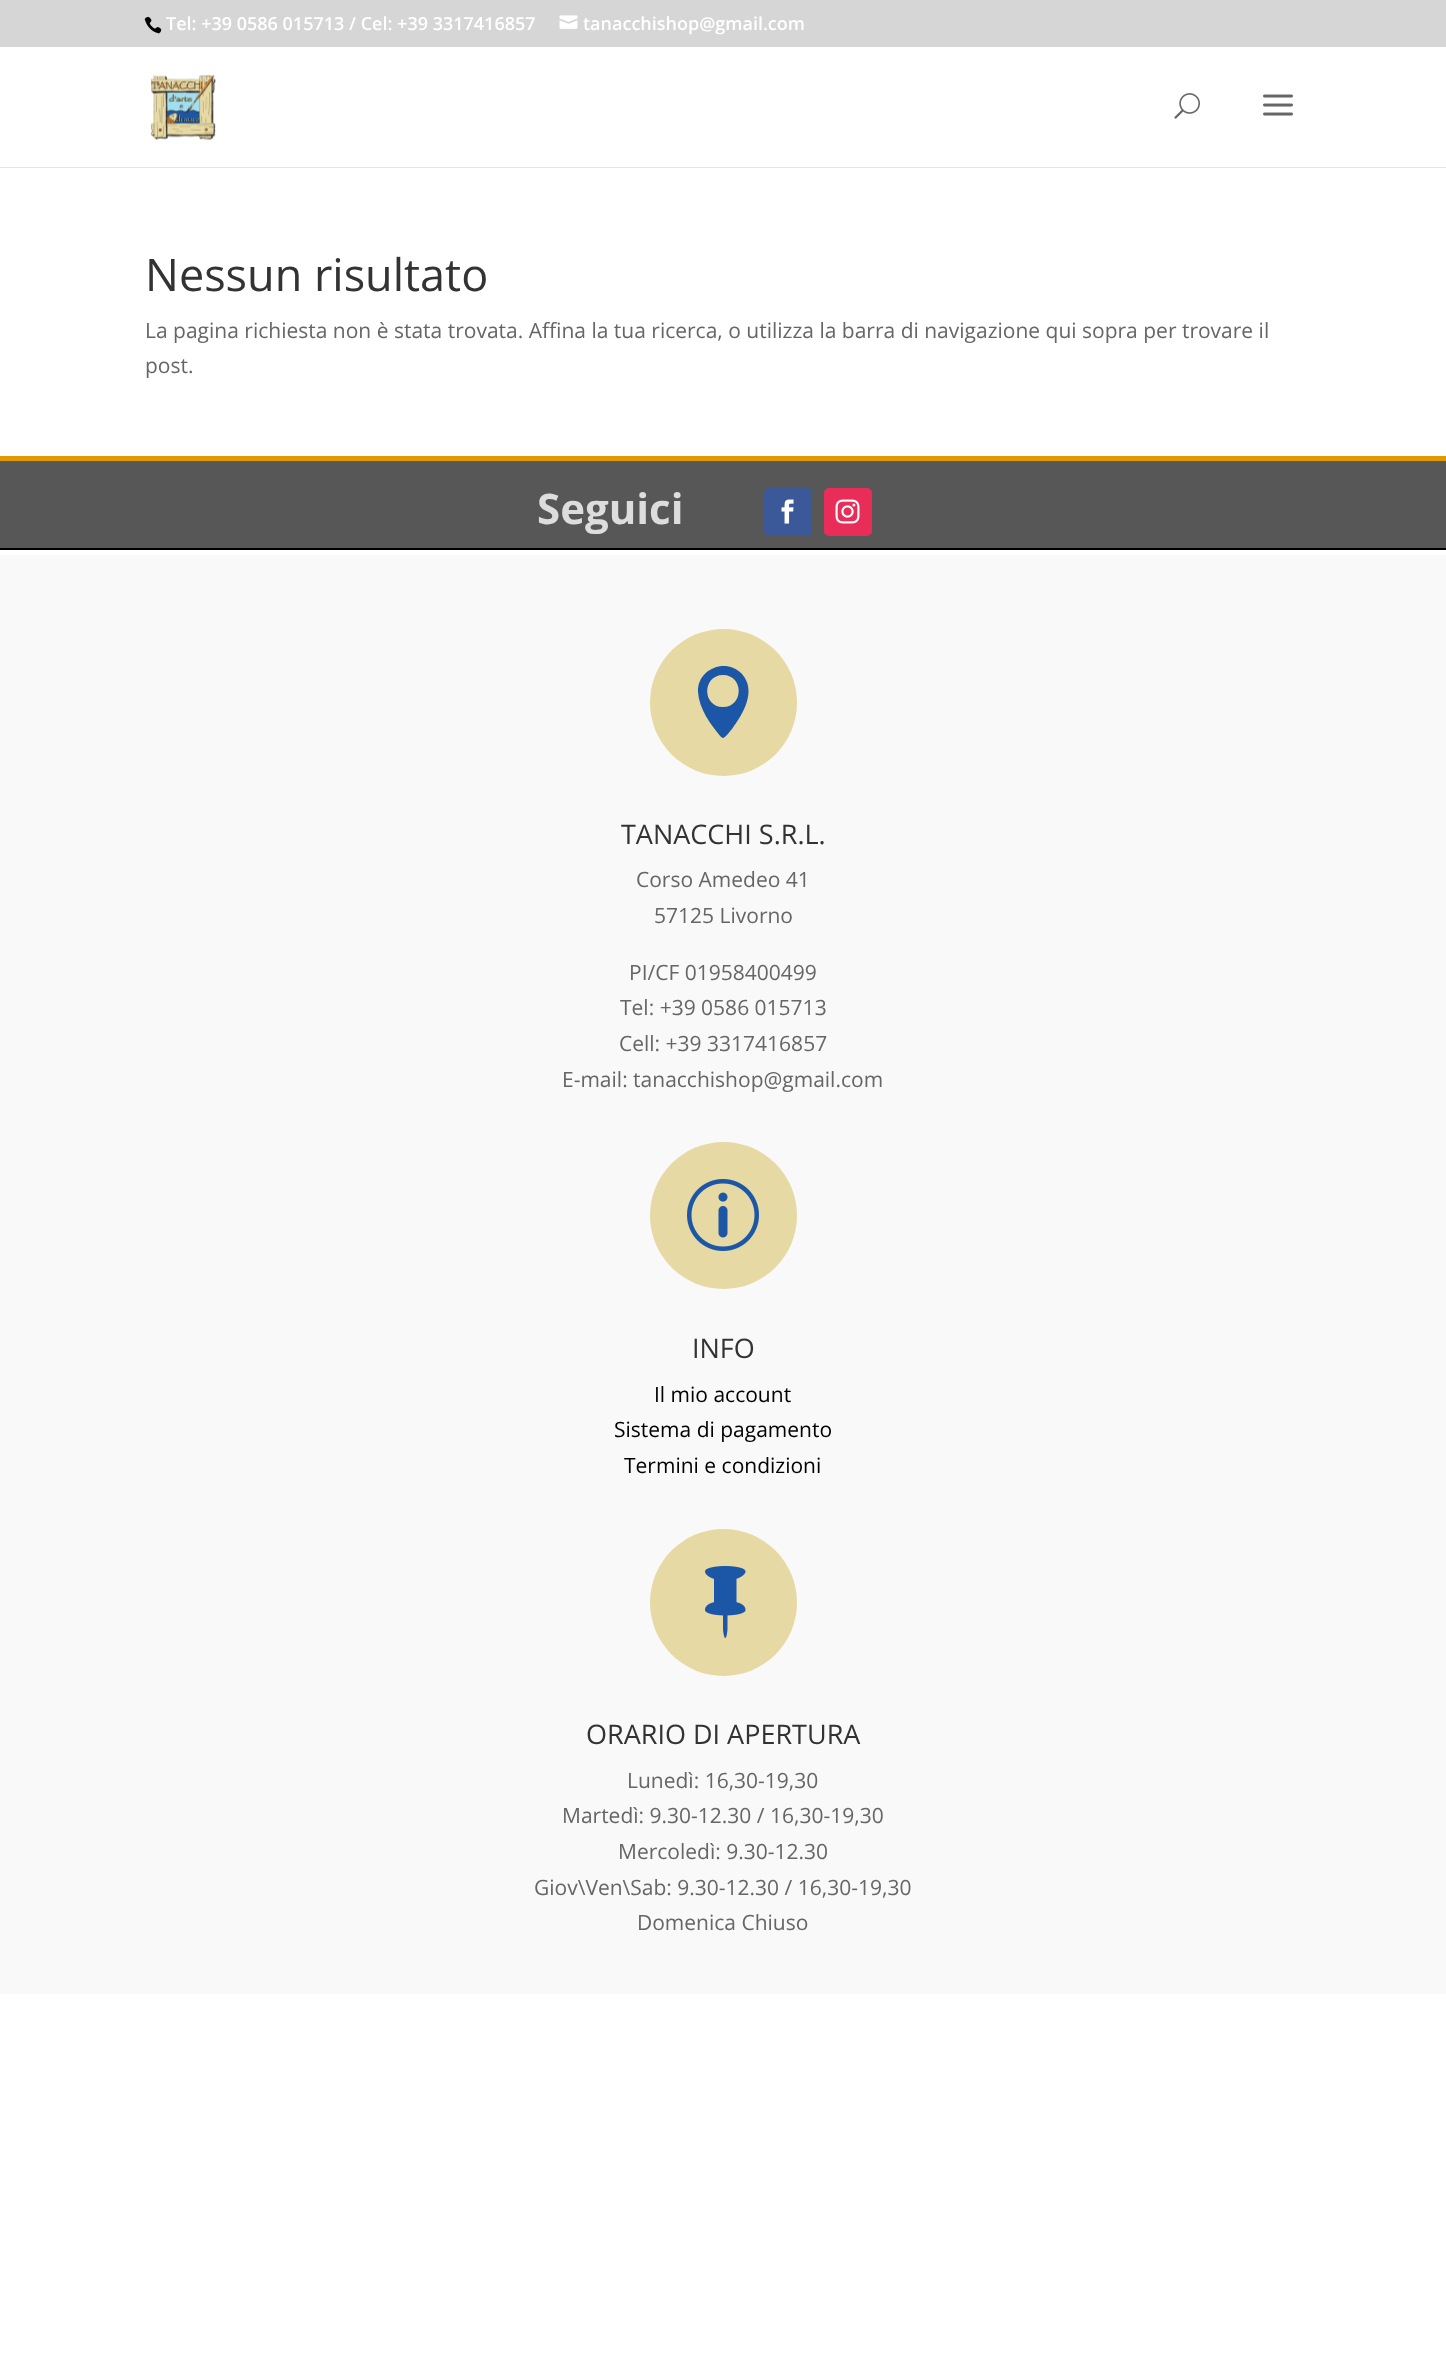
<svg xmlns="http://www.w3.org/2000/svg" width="1446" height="2356">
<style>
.a{font:600 18px Open Sans;fill:#fff}
.b{font:45px Open Sans;fill:#333}
.c{font:21px Open Sans;fill:#666}
.d{font:bold 42px Open Sans;fill:#ddd}
.e{font:27px Open Sans;fill:#333}
.f{font:21px Open Sans;fill:#000}
</style>
<rect width="100%" height="100%" fill="#fff"/>
<path fill="#d6d6d6" d="M0 0h1446v47H0z"/>
<image href="1.png" x="144" y="16" width="18" height="18"/>
<image href="2.png" x="559" y="15" width="19" height="14"/>
<path fill="#e6e6e6" d="M0 167h1446v1H0z"/>
<image href="3.png" x="150" y="74" width="66" height="66"/>
<image href="4.png" x="1174" y="93" width="26" height="26"/>
<image href="5.png" x="1263" y="94" width="30" height="22"/>
<path fill="#575757" d="M0 461h1446v87H0z"/>
<path fill="#e09900" d="M0 456h1446v5H0z"/>
<path fill="#000" d="M0 548h1446v2H0z"/>
<rect fill="#3b5998" x="764" y="488" width="48" height="48" rx="5"/>
<image href="6.png" x="781" y="499" width="13" height="25"/>
<rect fill="#ea2c59" x="824" y="488" width="48" height="48" rx="5"/>
<image href="7.png" x="835" y="499" width="25" height="25"/>
<path fill="#f9f9f9" d="M0 555h1446v1439H0z"/>
<circle fill="#e6d9a4" cx="723.5" cy="702.5" r="73.5"/>
<path fill="#1c57a7" d="M721 737l2 1c2 0 8-8 9-9c11-15 25-38 10-55c-16-17-45-5-44 18c1 17 13 33 23 45zm2-62c21 0 21 32 0 32c-21 0-21-32 0-32z"/>
<circle fill="#e6d9a4" cx="723.5" cy="1215.5" r="73.5"/>
<image href="8.png" x="687" y="1179" width="72" height="72"/>
<circle fill="#e6d9a4" cx="723.5" cy="1602.5" r="73.5"/>
<image href="9.png" x="705" y="1566" width="41" height="72"/>
<text class="a" x="166" y="30">Tel: +39 0586 015713 / Cel: +39 3317416857</text>
<text class="a" x="583" y="30">tanacchishop@gmail.com</text>
<text class="b" x="145" y="291">Nessun risultato</text>
<text class="c" x="145" y="338">La pagina richiesta non è stata trovata. Affina la tua ricerca, o utilizza la barra di navigazione qui sopra per trovare il</text>
<text class="c" x="145" y="373">post.</text>
<text class="d" x="537" y="524">Seguici</text>
<text class="e" x="621" y="844">TANACCHI S.R.L.</text>
<text class="c" x="636" y="887">Corso Amedeo 41</text>
<text class="c" x="654" y="923">57125 Livorno</text>
<text class="c" x="629" y="980">PI/CF 01958400499</text>
<text class="c" x="620" y="1015">Tel: +39 0586 015713</text>
<text class="c" x="619" y="1051">Cell: +39 3317416857</text>
<text class="c" x="562" y="1087">E-mail: tanacchishop@gmail.com</text>
<text class="e" x="692" y="1358">INFO</text>
<text class="f" x="654" y="1402">Il mio account</text>
<text class="f" x="614" y="1437">Sistema di pagamento</text>
<text class="f" x="624" y="1473">Termini e condizioni</text>
<text class="e" x="586" y="1744">ORARIO DI APERTURA</text>
<text class="c" x="627" y="1788">Lunedì: 16,30-19,30</text>
<text class="c" x="562" y="1823">Martedì: 9.30-12.30 / 16,30-19,30</text>
<text class="c" x="618" y="1859">Mercoledì: 9.30-12.30</text>
<text class="c" x="534" y="1895">Giov\Ven\Sab: 9.30-12.30 / 16,30-19,30</text>
<text class="c" x="637" y="1930">Domenica Chiuso</text>
</svg>
